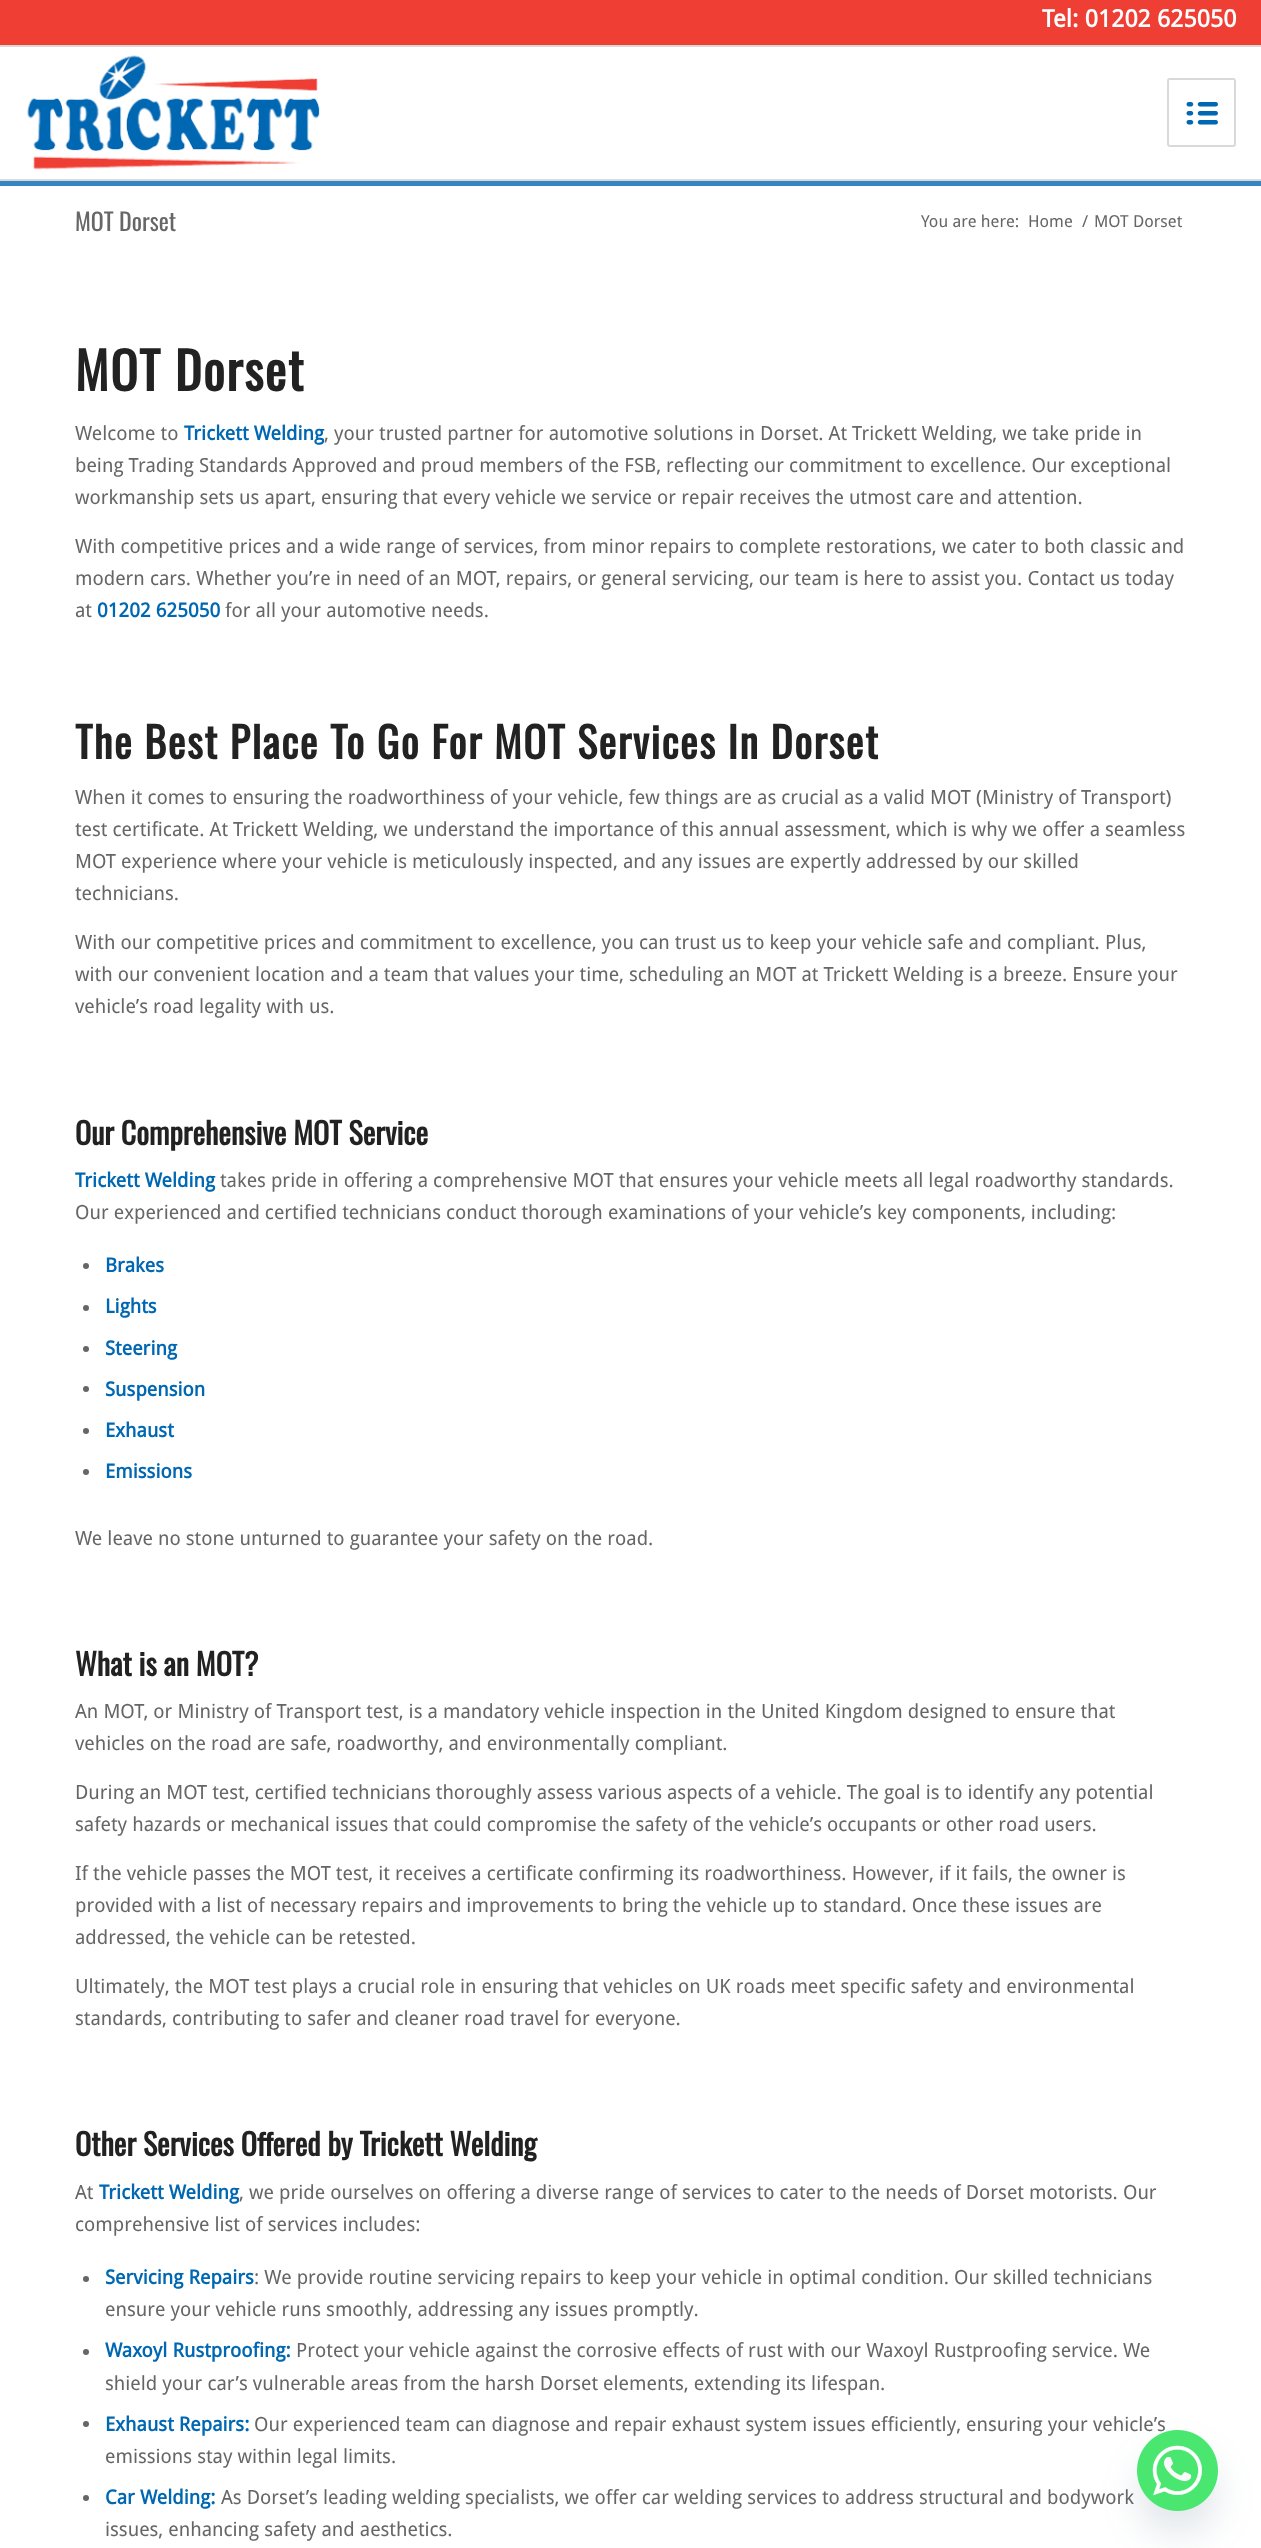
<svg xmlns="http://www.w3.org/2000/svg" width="1261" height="2548">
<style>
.a{font:bold 24px Droid Sans;fill:#fff}
.b{font:24px Oswald;fill:#666}
.c{font:16.5px Droid Sans;fill:#666}
.d{font:bold 51px Oswald;letter-spacing:1.5px;fill:#222}
.e{font:19.5px Droid Sans;fill:#666}
.f{font:bold 19.5px Droid Sans;fill:#0068b3}
.g{font:bold 42px Oswald;letter-spacing:1.5px;fill:#222}
.h{font:bold 30px Oswald;fill:#222}
</style>
<rect width="100%" height="100%" fill="#fff"/>
<path fill="#3386c2" d="M0 181h1261v5H0z"/>
<path fill="#ef3f35" d="M0 0h1261v45H0z"/>
<path fill="#d9d9d9" d="M0 45h1261v2H0z"/>
<path fill="#d9d9d9" d="M0 179h1261v2H0z"/>
<image href="1.png" x="27" y="55" width="293" height="115"/>
<rect fill="none" stroke="#d9d9d9" stroke-width="2" x="1168" y="79" width="67" height="67" rx="2"/>
<image href="2.png" x="1186" y="102" width="32" height="23"/>
<circle fill="#666" cx="86" cy="1266" r="3"/>
<circle fill="#666" cx="86" cy="1308" r="3"/>
<circle fill="#666" cx="86" cy="1349" r="3"/>
<circle fill="#666" cx="86" cy="1389" r="3"/>
<circle fill="#666" cx="86" cy="1431" r="3"/>
<circle fill="#666" cx="86" cy="1472" r="3"/>
<circle fill="#666" cx="86" cy="2279" r="3"/>
<circle fill="#666" cx="86" cy="2352" r="3"/>
<circle fill="#666" cx="86" cy="2424" r="3"/>
<circle fill="#666" cx="86" cy="2498" r="3"/>
<rect fill="#49687e29" filter="blur(18px)" x="1137" y="2454" width="81" height="81" rx="40.5"/>
<text class="a" x="1042" y="27">Tel: 01202 625050</text>
<text class="b" x="75" y="231">MOT Dorset</text>
<text class="c" x="921" y="227">You are here:</text>
<text class="c" x="1028" y="227">Home</text>
<text class="c" x="1082" y="227">/</text>
<text class="c" x="1094" y="227">MOT Dorset</text>
<text class="d" x="75" y="391">MOT Dorset</text>
<text class="e" x="75" y="440">Welcome to</text>
<text class="f" x="184" y="440">Trickett Welding</text>
<text class="e" x="324" y="440">, your trusted partner for automotive solutions in Dorset. At Trickett Welding, we take pride in</text>
<text class="e" x="75" y="472">being Trading Standards Approved and proud members of the FSB, reflecting our commitment to excellence. Our exceptional</text>
<text class="e" x="75" y="504">workmanship sets us apart, ensuring that every vehicle we service or repair receives the utmost care and attention.</text>
<text class="e" x="75" y="553">With competitive prices and a wide range of services, from minor repairs to complete restorations, we cater to both classic and</text>
<text class="e" x="75" y="585">modern cars. Whether you’re in need of an MOT, repairs, or general servicing, our team is here to assist you. Contact us today</text>
<text class="e" x="75" y="617">at</text>
<text class="f" x="97" y="617">01202 625050</text>
<text class="e" x="225" y="617">for all your automotive needs.</text>
<text class="g" x="75" y="759">The Best Place To Go For MOT Services In Dorset</text>
<text class="e" x="75" y="804">When it comes to ensuring the roadworthiness of your vehicle, few things are as crucial as a valid MOT (Ministry of Transport)</text>
<text class="e" x="75" y="836">test certificate. At Trickett Welding, we understand the importance of this annual assessment, which is why we offer a seamless</text>
<text class="e" x="75" y="868">MOT experience where your vehicle is meticulously inspected, and any issues are expertly addressed by our skilled</text>
<text class="e" x="75" y="900">technicians.</text>
<text class="e" x="75" y="949">With our competitive prices and commitment to excellence, you can trust us to keep your vehicle safe and compliant. Plus,</text>
<text class="e" x="75" y="981">with our convenient location and a team that values your time, scheduling an MOT at Trickett Welding is a breeze. Ensure your</text>
<text class="e" x="75" y="1013">vehicle’s road legality with us.</text>
<text class="h" x="75" y="1145">Our Comprehensive MOT Service</text>
<text class="f" x="75" y="1187">Trickett Welding</text>
<text class="e" x="220" y="1187">takes pride in offering a comprehensive MOT that ensures your vehicle meets all legal roadworthy standards.</text>
<text class="e" x="75" y="1219">Our experienced and certified technicians conduct thorough examinations of your vehicle’s key components, including:</text>
<text class="f" x="105" y="1272">Brakes</text>
<text class="f" x="105" y="1313">Lights</text>
<text class="f" x="105" y="1355">Steering</text>
<text class="f" x="105" y="1396">Suspension</text>
<text class="f" x="105" y="1437">Exhaust</text>
<text class="f" x="105" y="1478">Emissions</text>
<text class="e" x="75" y="1545">We leave no stone unturned to guarantee your safety on the road.</text>
<text class="h" x="75" y="1676">What is an MOT?</text>
<text class="e" x="75" y="1718">An MOT, or Ministry of Transport test, is a mandatory vehicle inspection in the United Kingdom designed to ensure that</text>
<text class="e" x="75" y="1750">vehicles on the road are safe, roadworthy, and environmentally compliant.</text>
<text class="e" x="75" y="1799">During an MOT test, certified technicians thoroughly assess various aspects of a vehicle. The goal is to identify any potential</text>
<text class="e" x="75" y="1831">safety hazards or mechanical issues that could compromise the safety of the vehicle’s occupants or other road users.</text>
<text class="e" x="75" y="1880">If the vehicle passes the MOT test, it receives a certificate confirming its roadworthiness. However, if it fails, the owner is</text>
<text class="e" x="75" y="1912">provided with a list of necessary repairs and improvements to bring the vehicle up to standard. Once these issues are</text>
<text class="e" x="75" y="1944">addressed, the vehicle can be retested.</text>
<text class="e" x="75" y="1993">Ultimately, the MOT test plays a crucial role in ensuring that vehicles on UK roads meet specific safety and environmental</text>
<text class="e" x="75" y="2025">standards, contributing to safer and cleaner road travel for everyone.</text>
<text class="h" x="75" y="2156">Other Services Offered by Trickett Welding</text>
<text class="e" x="75" y="2199">At</text>
<text class="f" x="99" y="2199">Trickett Welding</text>
<text class="e" x="239" y="2199">, we pride ourselves on offering a diverse range of services to cater to the needs of Dorset motorists. Our</text>
<text class="e" x="75" y="2231">comprehensive list of services includes:</text>
<text class="f" x="105" y="2284">Servicing Repairs</text>
<text class="e" x="254" y="2284">: We provide routine servicing repairs to keep your vehicle in optimal condition. Our skilled technicians</text>
<text class="e" x="105" y="2316">ensure your vehicle runs smoothly, addressing any issues promptly.</text>
<text class="f" x="105" y="2357">Waxoyl Rustproofing:</text>
<text class="e" x="296" y="2357">Protect your vehicle against the corrosive effects of rust with our Waxoyl Rustproofing service. We</text>
<text class="e" x="105" y="2390">shield your car’s vulnerable areas from the harsh Dorset elements, extending its lifespan.</text>
<text class="f" x="105" y="2431">Exhaust Repairs:</text>
<text class="e" x="254" y="2431">Our experienced team can diagnose and repair exhaust system issues efficiently, ensuring your vehicle’s</text>
<text class="e" x="105" y="2463">emissions stay within legal limits.</text>
<text class="f" x="105" y="2504">Car Welding:</text>
<text class="e" x="221" y="2504">As Dorset’s leading welding specialists, we offer car welding services to address structural and bodywork</text>
<text class="e" x="105" y="2536">issues, enhancing safety and aesthetics.</text>
<image href="3.png" x="1137" y="2430" width="81" height="81"/>
</svg>
